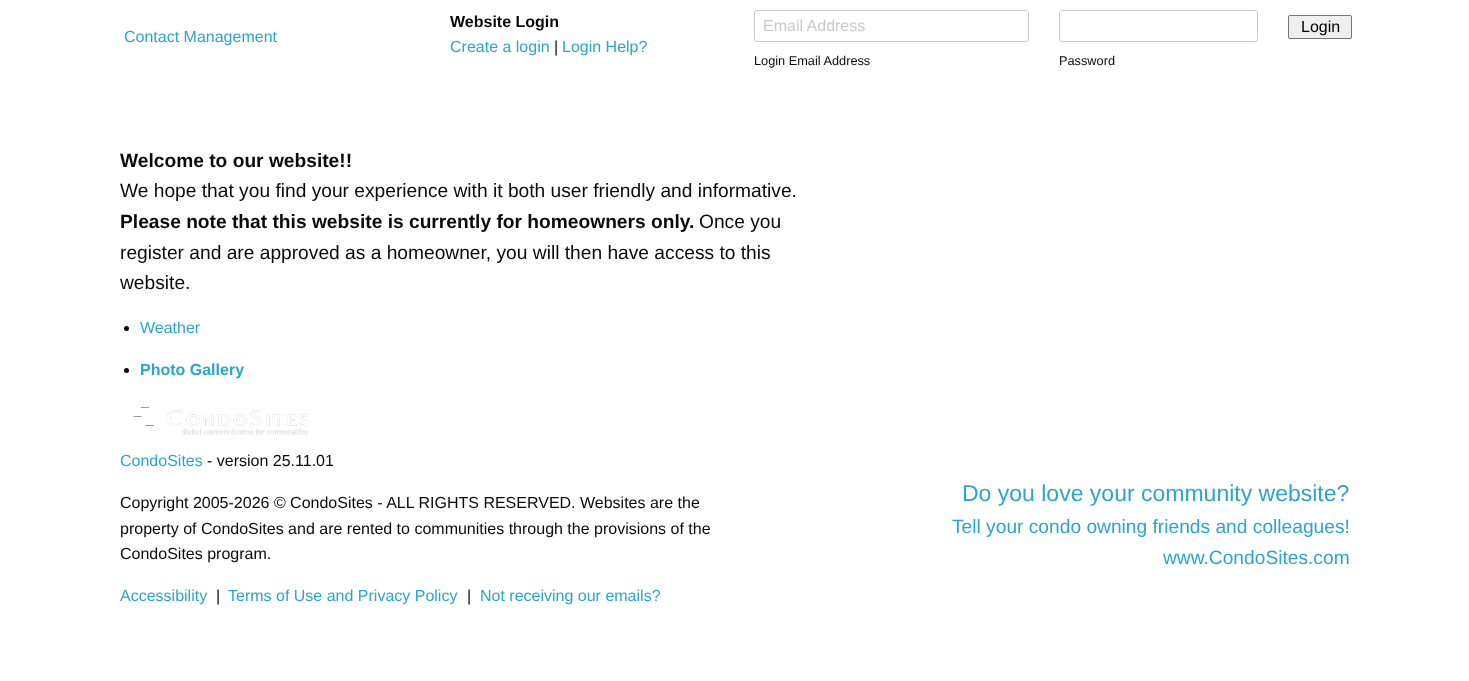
<svg xmlns="http://www.w3.org/2000/svg" width="1469" height="681">
<style>
.a{font:16px Liberation Sans;fill:#2ba6cb}
.b{font:bold 16px Liberation Sans;fill:#0a0a0a}
.c{font:16px Liberation Sans;fill:#0a0a0a}
.d{font:16px Liberation Sans;fill:#cacaca}
.e{font:12.75px Liberation Sans;fill:#0a0a0a}
.f{font:16px Liberation Sans;fill:#000}
.g{font:bold 19.2px Liberation Sans;fill:#0a0a0a}
.h{font:19.2px Liberation Sans;fill:#0a0a0a}
.i{font:bold 16px Liberation Sans;fill:#2ba6cb}
.j{font:23px Liberation Sans;fill:#2ba6cb}
.k{font:19.2px Liberation Sans;fill:#2ba6cb}
</style>
<rect width="100%" height="100%" fill="#fff"/>
<rect fill="none" stroke="#cacaca" x="754.5" y="10.5" width="274" height="31" rx="2.5"/>
<rect fill="#efefef" stroke="#767676" x="1288.5" y="15.5" width="63" height="23" rx="1.5"/>
<rect fill="none" stroke="#cacaca" x="1059.5" y="10.5" width="198" height="31" rx="2.5"/>
<circle fill="#0a0a0a" cx="126.5" cy="328.5" r="2.5"/>
<circle fill="#0a0a0a" cx="126.5" cy="370.5" r="2.5"/>
<image href="1.png" x="133" y="407" width="175" height="29"/>
<text class="a" x="124" y="42">Contact Management</text>
<text class="b" x="450" y="27">Website Login</text>
<text class="a" x="450" y="52">Create a login</text>
<text class="c" x="554" y="52">|</text>
<text class="a" x="562" y="52">Login Help?</text>
<text class="d" x="763" y="31">Email Address</text>
<text class="e" x="754" y="65">Login Email Address</text>
<text class="f" x="1301" y="32">Login</text>
<text class="e" x="1059" y="65">Password</text>
<text class="g" x="120" y="167">Welcome to our website!!</text>
<text class="h" x="120" y="197">We hope that you find your experience with it both user friendly and informative.</text>
<text class="g" x="120" y="228">Please note that this website is currently for homeowners only.</text>
<text class="h" x="699" y="228">Once you</text>
<text class="h" x="120" y="259">register and are approved as a homeowner, you will then have access to this</text>
<text class="h" x="120" y="289">website.</text>
<text class="a" x="140" y="333">Weather</text>
<text class="i" x="140" y="375">Photo Gallery</text>
<text class="a" x="120" y="466">CondoSites</text>
<text class="c" x="207" y="466">- version 25.11.01</text>
<text class="c" x="120" y="508">Copyright 2005-2026 © CondoSites - ALL RIGHTS RESERVED. Websites are the</text>
<text class="c" x="120" y="534">property of CondoSites and are rented to communities through the provisions of the</text>
<text class="c" x="120" y="559">CondoSites program.</text>
<text class="a" x="120" y="601">Accessibility</text>
<text class="c" x="216" y="601">|</text>
<text class="a" x="228" y="601">Terms of Use and Privacy Policy</text>
<text class="c" x="467" y="601">|</text>
<text class="a" x="480" y="601">Not receiving our emails?</text>
<text class="j" x="962" y="501">Do you love your community website?</text>
<text class="k" x="952" y="533">Tell your condo owning friends and colleagues!</text>
<text class="k" x="1163" y="564">www.CondoSites.com</text>
</svg>
